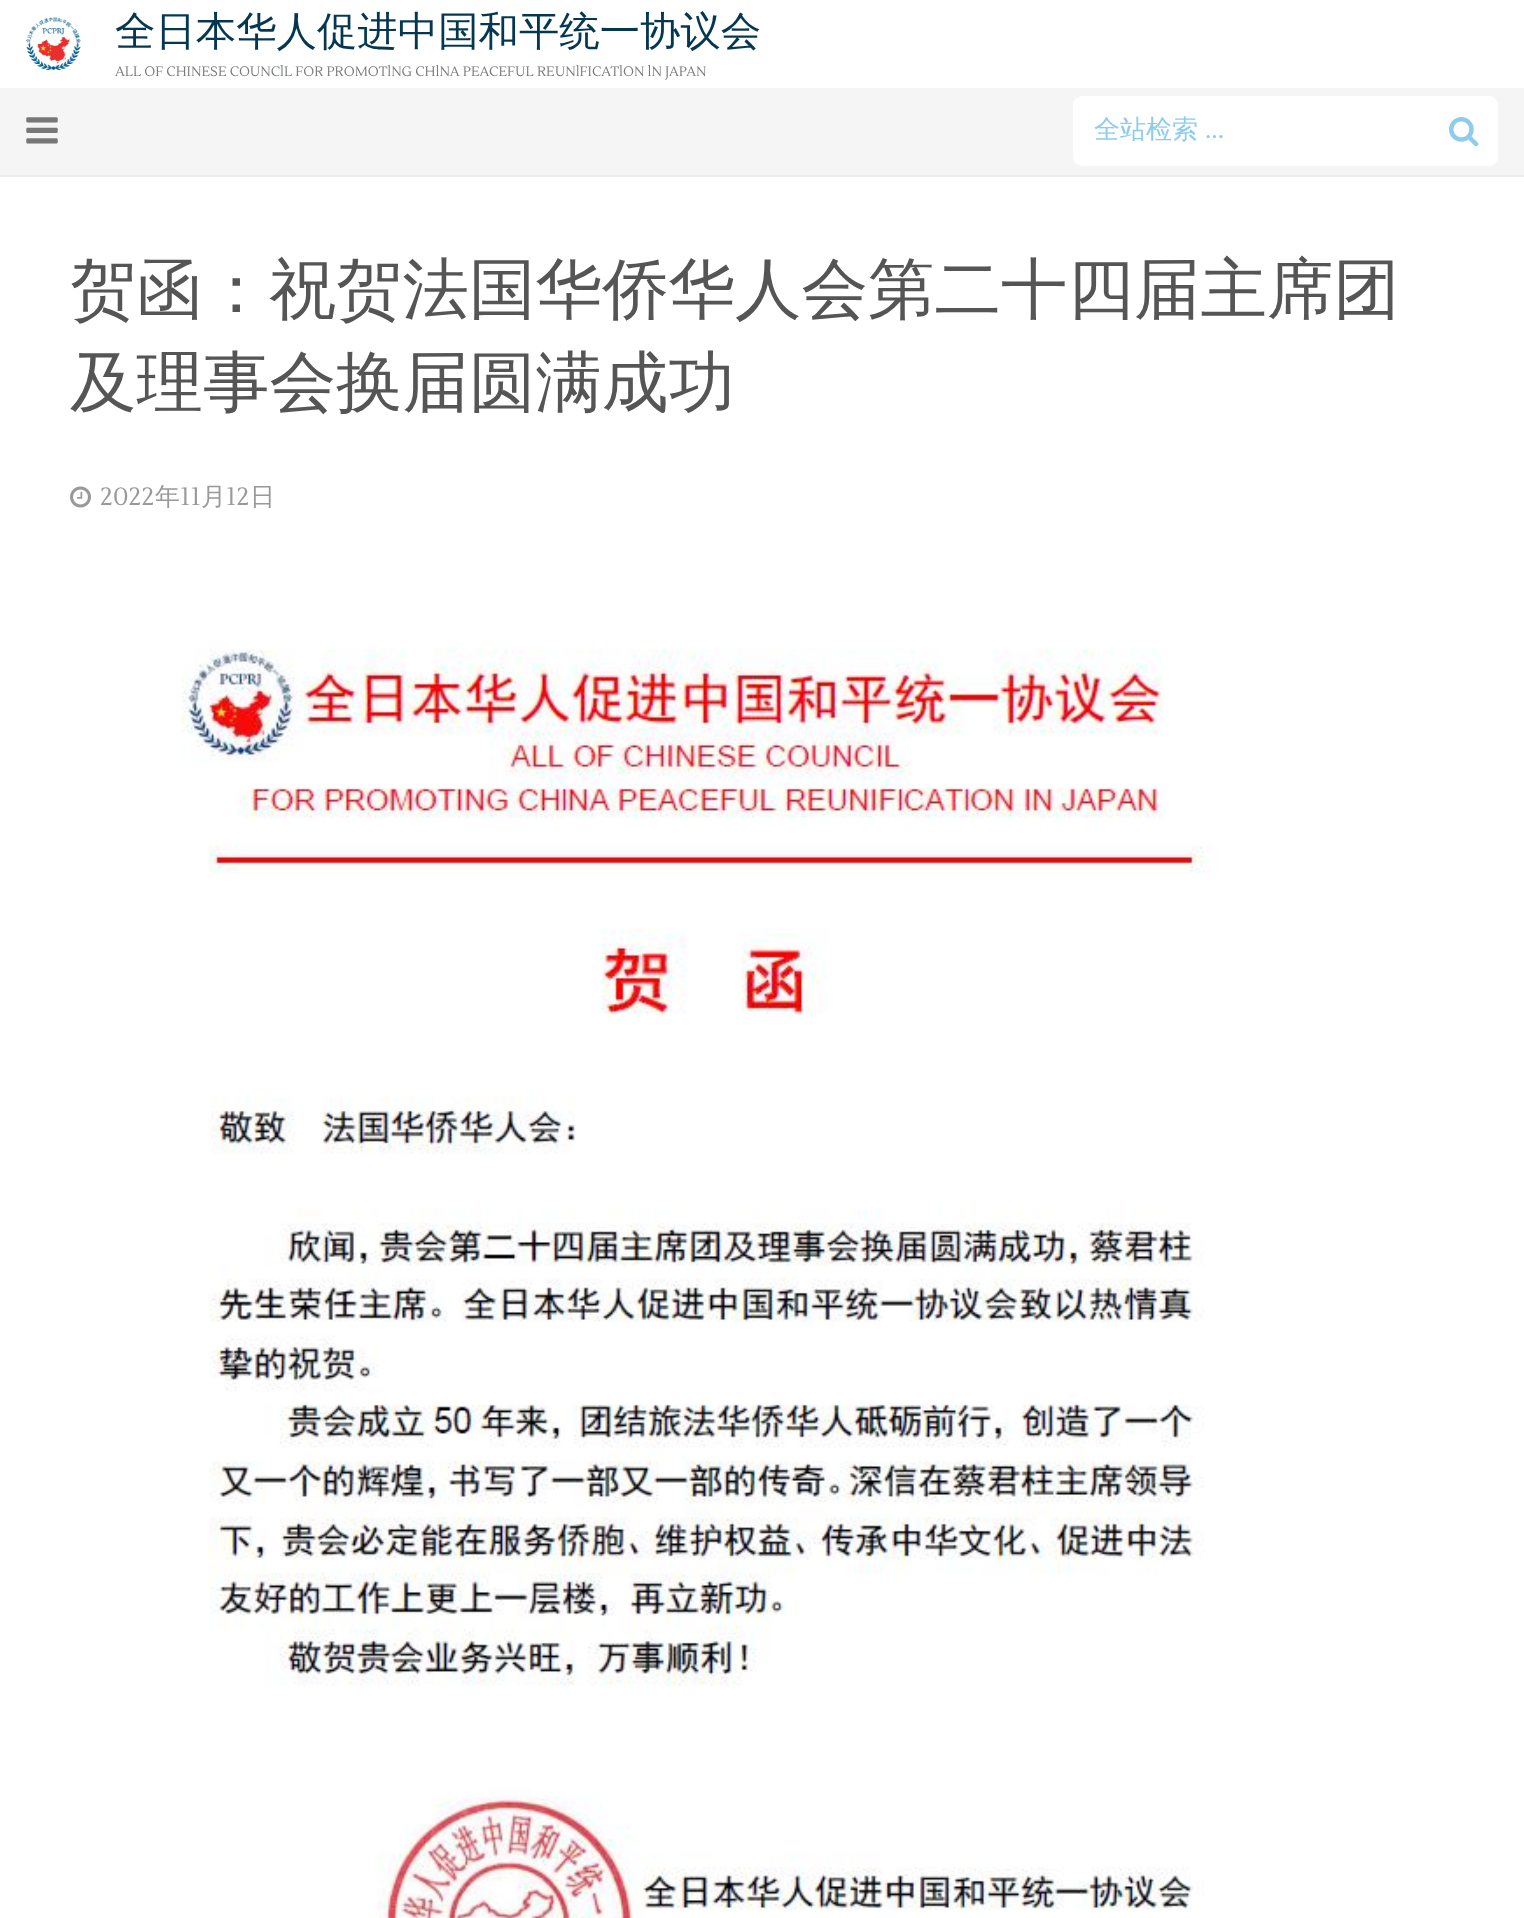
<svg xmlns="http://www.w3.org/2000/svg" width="1524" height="1918">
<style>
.a{font:500 40.4px WenQuanYi Zen Hei;fill:#053750}
.b{font:13.7px Lustria;fill:#797b7c}
.c{font:500 26px WenQuanYi Zen Hei;fill:#8dccf0}
.d{font:26px Lustria;fill:#8dccf0}
.e{font:500 66.5px WenQuanYi Zen Hei;fill:#555}
.f{font:25px Lustria;fill:#999}
.g{font:500 25px WenQuanYi Zen Hei;fill:#999}
</style>
<rect width="100%" height="100%" fill="#fff"/>
<image href="1.png" x="26" y="17" width="55" height="53"/>
<path fill="#ebebeb" d="M0 175h1524v2H0z"/>
<path fill="#f5f5f5" d="M0 88h1524v87H0z"/>
<image href="2.png" x="26" y="117" width="32" height="27"/>
<rect fill="#fff" x="1073" y="96" width="425" height="70" rx="9"/>
<image href="3.png" x="1449" y="117" width="30" height="30"/>
<image href="4.png" x="70" y="486" width="21" height="22"/>
<image href="5.png" x="181" y="648" width="1037" height="1270"/>
<text class="a" x="115" y="45">全日本华人促进中国和平统一协议会</text>
<text class="b" x="115" y="76">ALL OF CHINESE COUNClL FOR PROMOTlNG CHlNA PEACEFUL REUNlFICATlON lN JAPAN</text>
<text class="c" x="1094" y="138">全站检索</text>
<text class="d" x="1205" y="138">...</text>
<text class="e" x="70" y="312">贺函：祝贺法国华侨华人会第二十四届主席团</text>
<text class="e" x="70" y="405">及理事会换届圆满成功</text>
<text class="f" x="100" y="505">2022</text>
<text class="g" x="155" y="505">年</text>
<text class="f" x="180" y="505">11</text>
<text class="g" x="201" y="505">月</text>
<text class="f" x="226" y="505">12</text>
<text class="g" x="250" y="505">日</text>
</svg>
